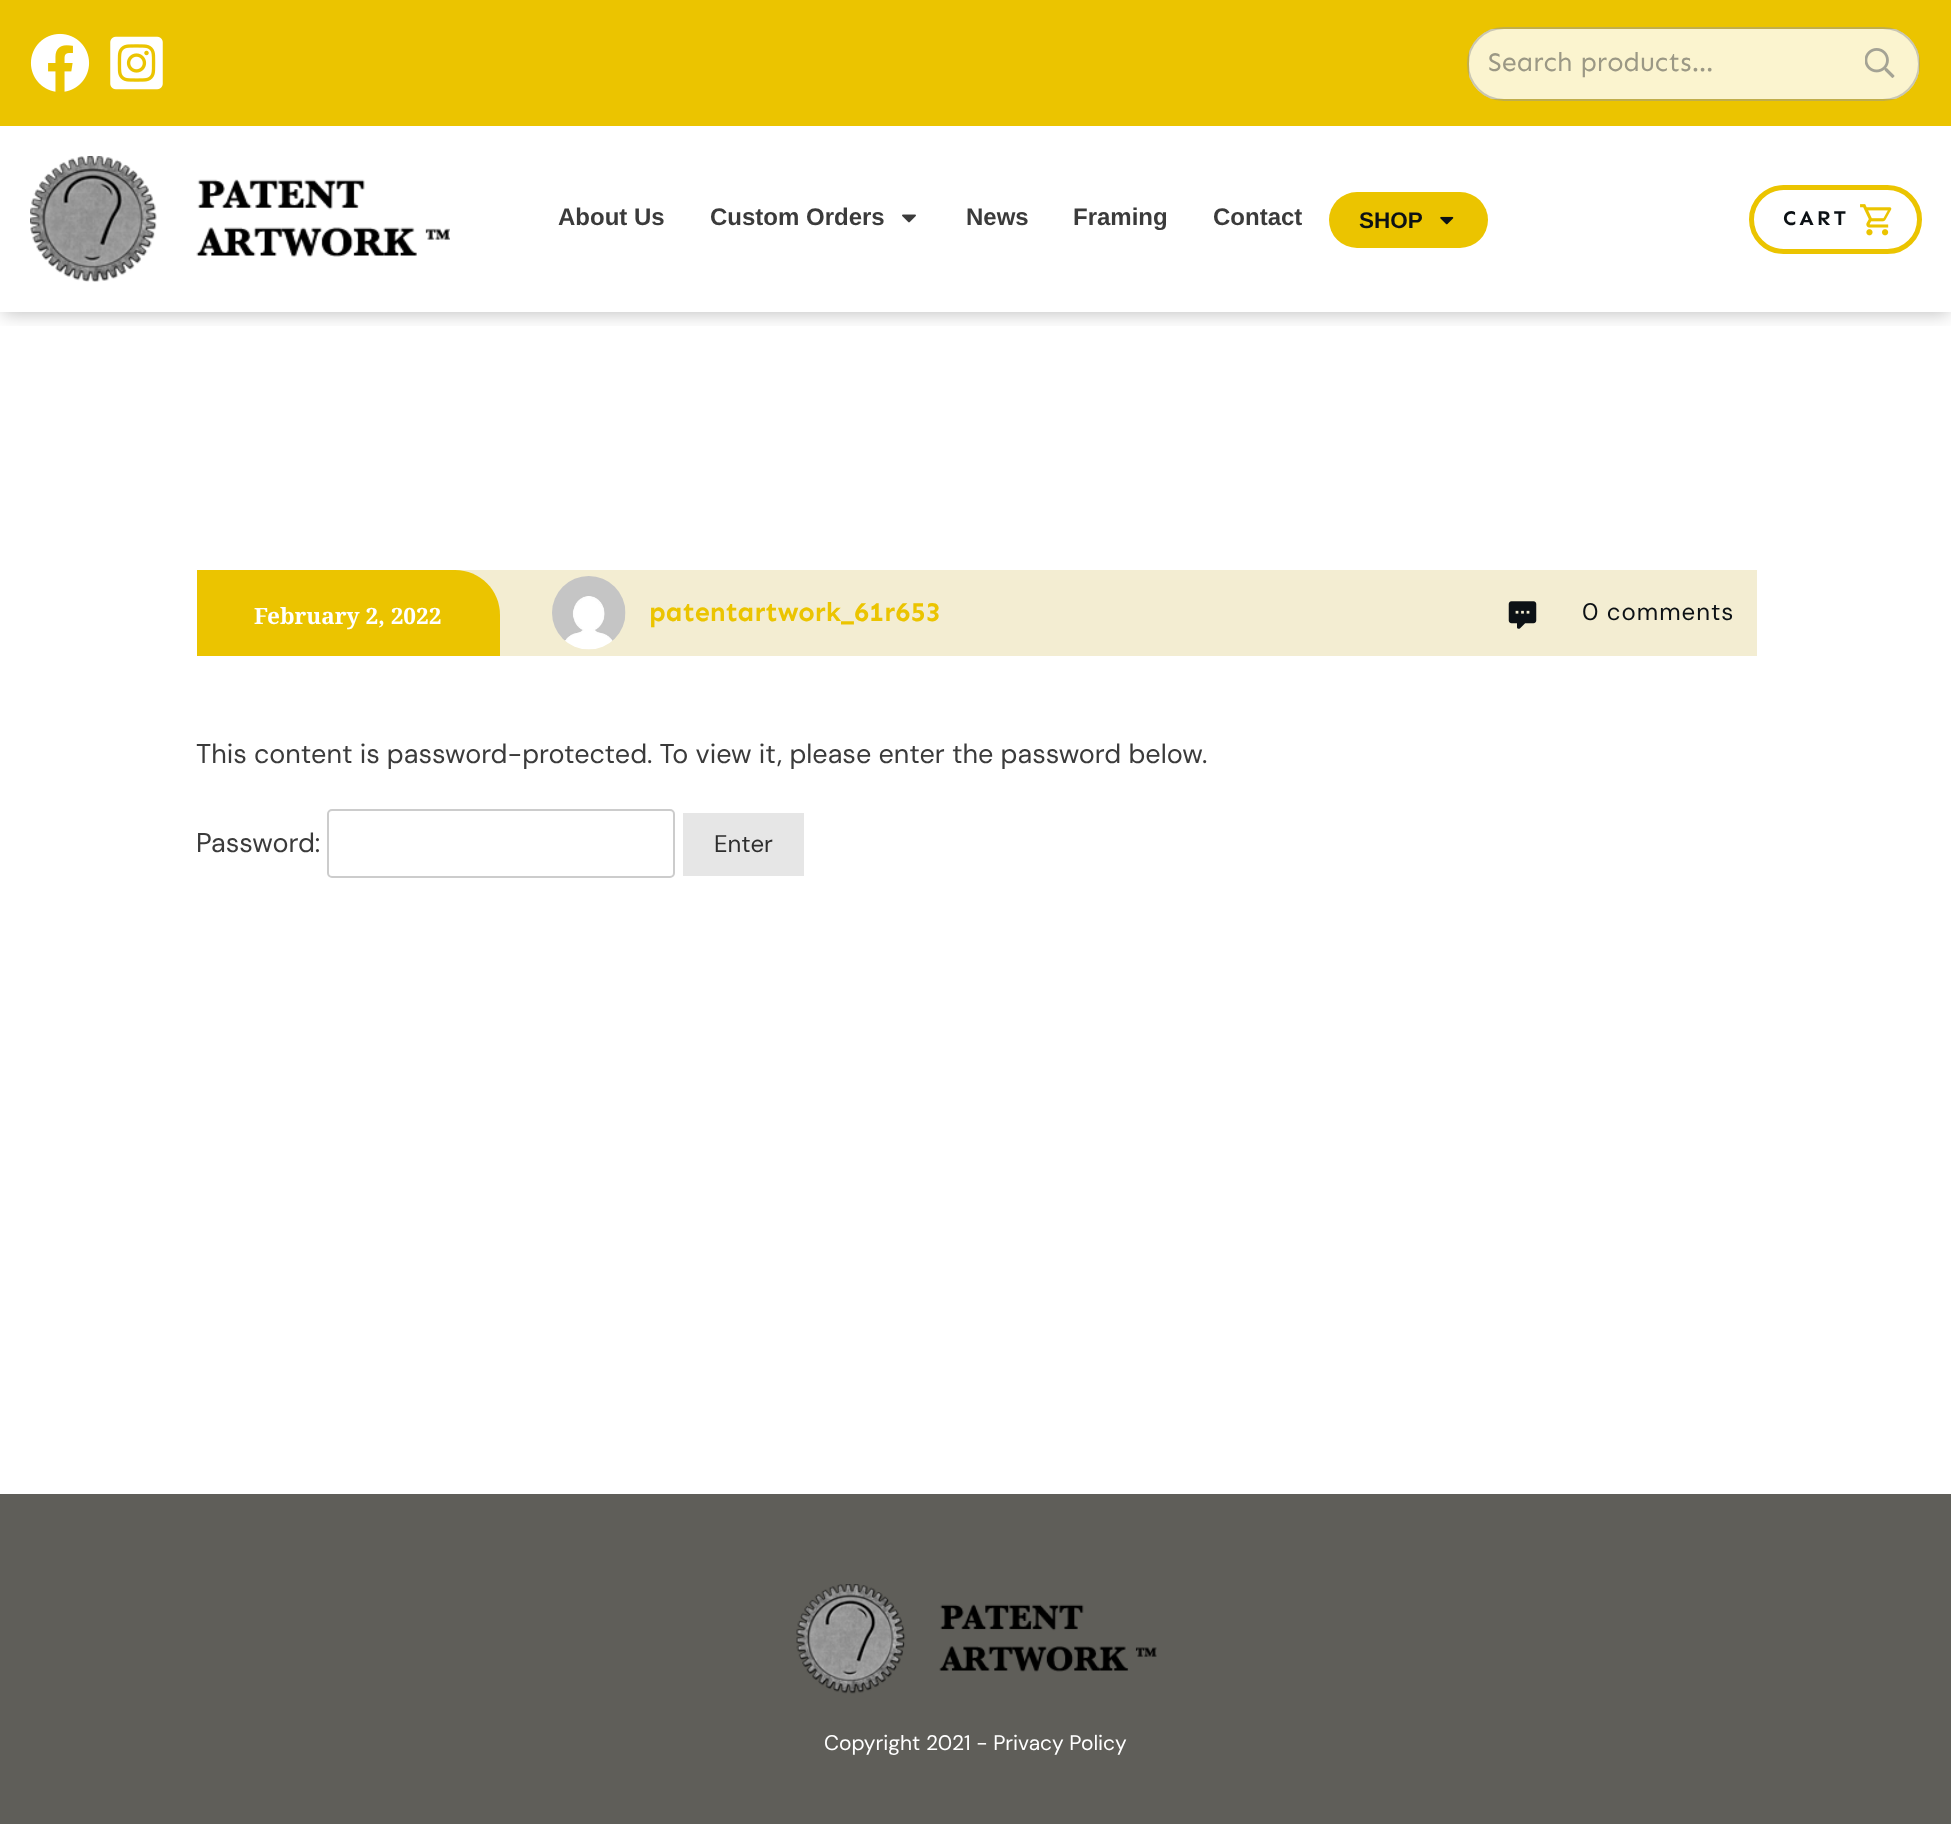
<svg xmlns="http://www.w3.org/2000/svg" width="1951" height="1824">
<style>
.a{font:27px Sen;fill:#9b9885}
.b{font:bold 24px Liberation Sans;fill:#3b3b3b}
.c{font:bold 22.5px Liberation Sans;fill:#0c1115}
.d{font:bold 21px Sen;letter-spacing:3px;fill:#0c1115}
.e{font:bold 22.5px Noto Serif;fill:#fff}
.f{font:bold 27px Sen;fill:#ebc400}
.g{font:24px DM Sans;letter-spacing:1px;fill:#0c1115}
.h{font:27px DM Sans;fill:#3b3b3b}
.i{font:24px DM Sans;fill:#2e2e2e}
.j{font:21px DM Sans;fill:#fff}
</style>
<defs>
<clipPath id="clip1"><path d="M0 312h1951v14H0z"/></clipPath>
<clipPath id="clip2"><rect x="1467" y="27" width="453" height="74" rx="37"/></clipPath>
</defs>
<rect width="100%" height="100%" fill="#fff"/>
<g clip-path="url(#clip1)">
<path fill="#0000003d" filter="blur(9px)" d="M3 8h1946v306H3z"/>
</g>
<path fill="#ebc400" d="M0 0h1951v126H0z"/>
<image href="1.png" x="30" y="33" width="60" height="59"/>
<image href="2.png" x="110" y="36" width="53" height="54"/>
<g clip-path="url(#clip2)">
<path fill="#fbf4cf" d="M1469 29h450v70H1469z"/>
</g>
<rect fill="none" stroke="#97979780" stroke-width="2" x="1468" y="28" width="451" height="72" rx="36"/>
<image href="3.png" x="1865" y="48" width="30" height="30"/>
<image href="4.png" x="30" y="156" width="420" height="126"/>
<image href="5.png" x="902" y="214" width="14" height="9"/>
<rect fill="#ebc400" x="1329" y="192" width="159" height="56" rx="28"/>
<image href="6.png" x="1440" y="216" width="14" height="9"/>
<rect fill="none" stroke="#ebc400" stroke-width="5" x="1751.5" y="187.5" width="168" height="64" rx="32"/>
<image href="7.png" x="1860" y="204" width="32" height="32"/>
<path fill="#f3edd2" d="M455 570h1302v86H455z"/>
<path fill="#ebc400" d="M197 570h258c25 0 45 20 45 45v41h-303z"/>
<image href="8.png" x="552" y="576" width="74" height="74"/>
<image href="9.png" x="1508" y="601" width="29" height="28"/>
<rect fill="none" stroke="#ccc" stroke-width="2" x="328" y="810" width="346" height="67" rx="4"/>
<path fill="#e6e6e6" d="M683 813h121v63H683z"/>
<path fill="#5f5e59" d="M0 1494h1951v330H0z"/>
<image href="10.png" x="796" y="1584" width="361" height="110"/>
<text class="a" x="1488" y="71">Search products…</text>
<text class="b" x="558" y="225">About Us</text>
<text class="b" x="710" y="225">Custom Orders</text>
<text class="b" x="966" y="225">News</text>
<text class="b" x="1073" y="225">Framing</text>
<text class="b" x="1213" y="225">Contact</text>
<text class="c" x="1359" y="228">SHOP</text>
<text class="d" x="1783" y="225">CART</text>
<text class="e" x="254" y="624">February 2, 2022</text>
<text class="f" x="649" y="621">patentartwork_61r653</text>
<text class="g" x="1582" y="620">0 comments</text>
<text class="h" x="196" y="763">This content is password-protected. To view it, please enter the password below.</text>
<text class="h" x="196" y="852">Password:</text>
<text class="i" x="714" y="852">Enter</text>
<text class="j" x="824" y="1750">Copyright 2021 - Privacy Policy</text>
</svg>
